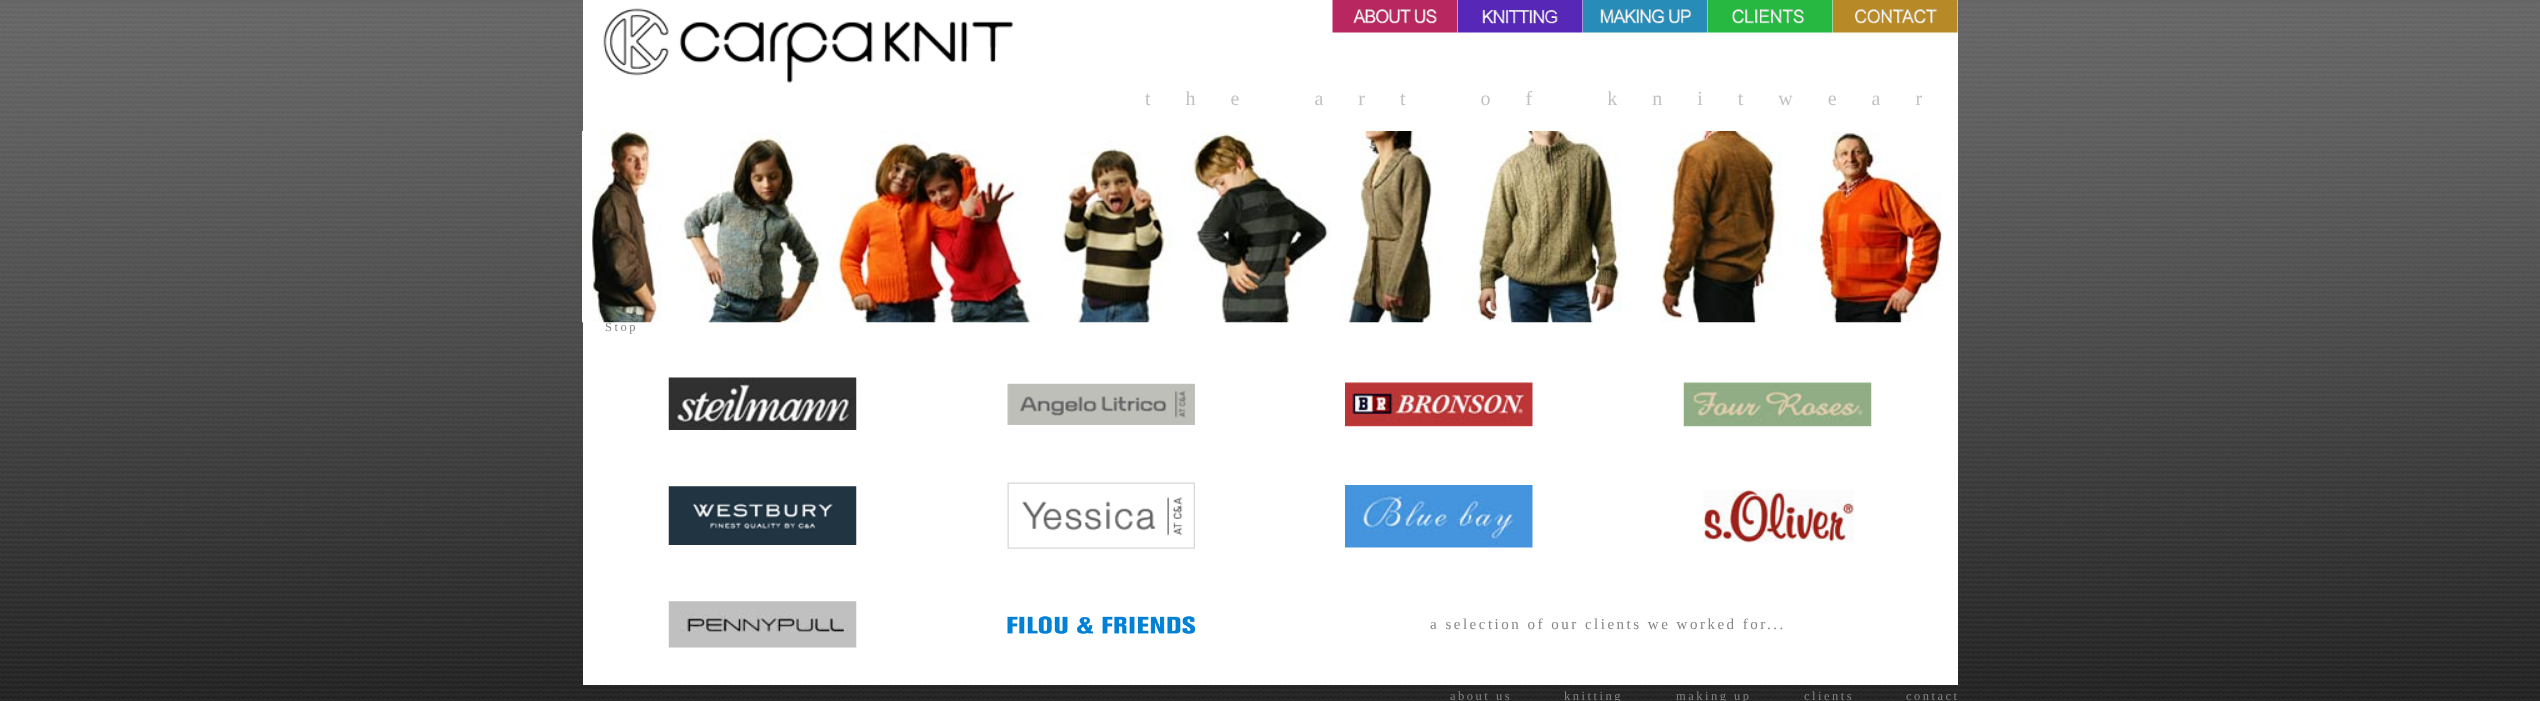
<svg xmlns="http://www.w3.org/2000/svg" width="2540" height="701">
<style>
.a{font:20px Liberation Serif;letter-spacing:35px;fill:#c4c1c1}
.b{font:12.5px Liberation Serif;letter-spacing:2.5px;fill:#858585}
.c{font:15px Liberation Serif;letter-spacing:2.5px;fill:#858585}
</style>
<rect width="100%" height="100%" fill="#fff"/>
<image href="1.png" x="0" y="0" width="2540" height="701"/>
<path fill="#fff" d="M583 0h1375v685H583z"/>
<image href="2.png" x="603" y="8" width="410" height="75"/>
<image href="3.png" x="1332" y="0" width="126" height="33"/>
<image href="4.png" x="1458" y="0" width="125" height="33"/>
<image href="5.png" x="1583" y="0" width="125" height="33"/>
<image href="6.png" x="1708" y="0" width="125" height="33"/>
<image href="7.png" x="1833" y="0" width="125" height="33"/>
<image href="9.png" x="668" y="377" width="189" height="53"/>
<image href="10.png" x="1007" y="383" width="188" height="42"/>
<image href="11.png" x="1345" y="382" width="188" height="45"/>
<image href="12.png" x="1683" y="382" width="189" height="45"/>
<image href="13.png" x="668" y="486" width="189" height="59"/>
<image href="14.png" x="1007" y="482" width="188" height="67"/>
<image href="15.png" x="1345" y="485" width="188" height="63"/>
<image href="16.png" x="1703" y="490" width="151" height="53"/>
<image href="17.png" x="668" y="601" width="189" height="47"/>
<image href="18.png" x="1007" y="616" width="188" height="18"/>
<text class="a" x="1145" y="105">the art of knitwear</text>
<text class="b" x="605" y="331">Stop</text>
<image href="8.png" x="582" y="131" width="1360" height="192"/>
<text class="c" x="1430" y="629">a selection of our clients we worked for...</text>
<text class="b" x="1450" y="700">about us</text>
<text class="b" x="1564" y="700">knitting</text>
<text class="b" x="1676" y="700">making up</text>
<text class="b" x="1804" y="700">clients</text>
<text class="b" x="1906" y="700">contact</text>
</svg>
